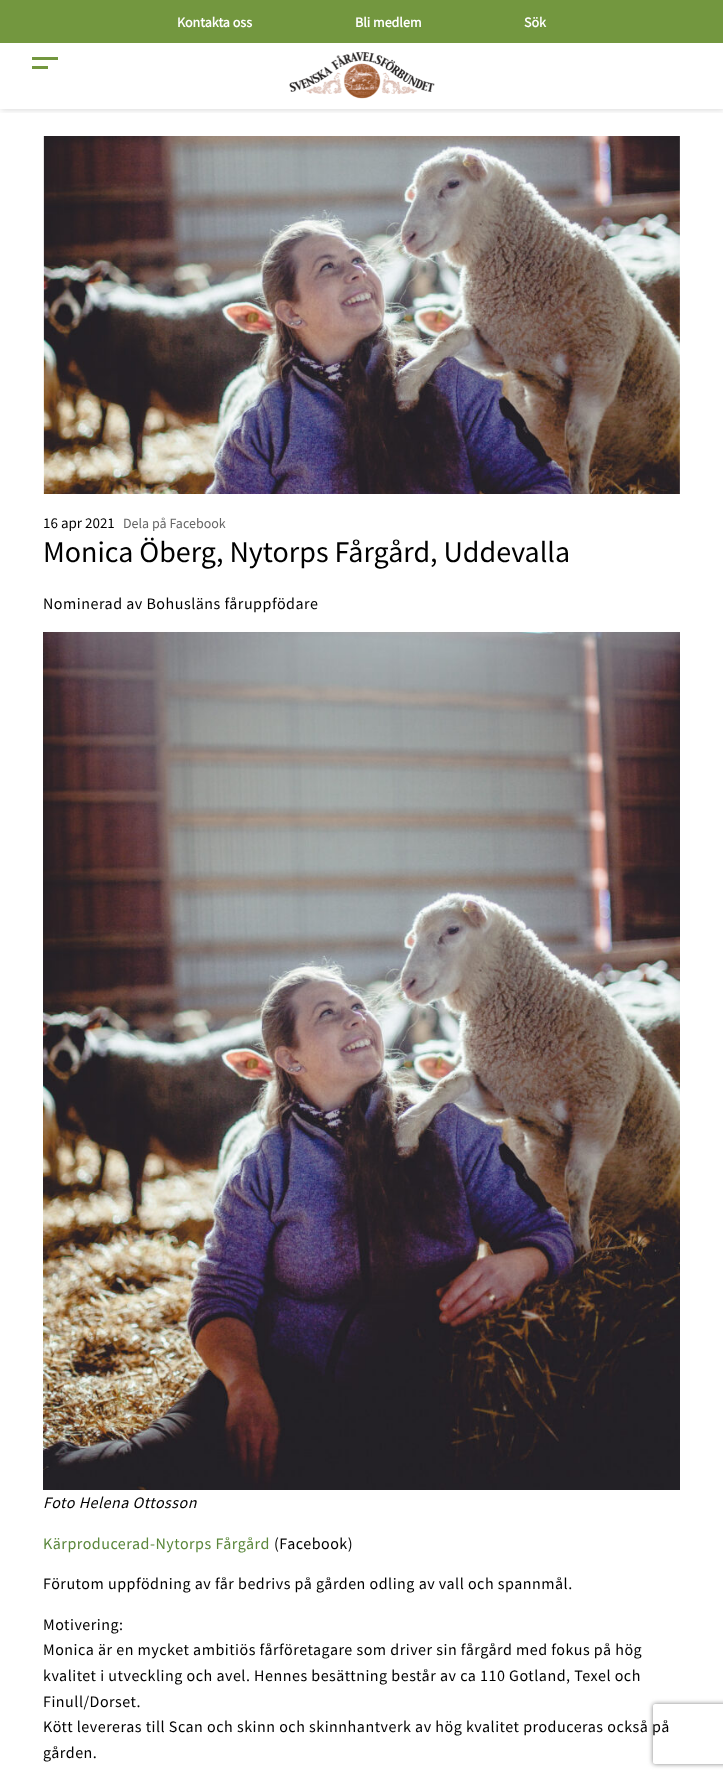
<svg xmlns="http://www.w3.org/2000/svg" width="723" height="1778">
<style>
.a{font:bold 14px Source Sans Pro;fill:#fff}
.b{font:15px Source Sans Pro;fill:#000}
.c{font:14px Source Sans Pro;fill:#666}
.d{font:30px Source Sans Pro;fill:#000}
.e{font:16px Source Sans Pro;letter-spacing:0.5px;fill:#000}
.f{font:italic 16px Source Sans Pro;letter-spacing:0.5px;fill:#000}
.g{font:16px Source Sans Pro;letter-spacing:0.5px;fill:#5a873b}
</style>
<defs>
<clipPath id="clip1"><path d="M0 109h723v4H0z"/></clipPath>
<clipPath id="clip2"><path d="M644 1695h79v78h-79zm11 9h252c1 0 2 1 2 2v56c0 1-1 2-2 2h-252c-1 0-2-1-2-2v-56c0-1 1-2 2-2z" clip-rule="evenodd"/></clipPath>
</defs>
<rect width="100%" height="100%" fill="#fff"/>
<g clip-path="url(#clip1)">
<path fill="#00000026" filter="blur(3px)" d="M1 1h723v109H1z"/>
</g>
<path fill="#73973f" d="M0 0h723v43H0z"/>
<path fill="#73973f" d="M32 57h26v3H32z"/>
<path fill="#73973f" d="M32 66h16v3H32z"/>
<image href="1.png" x="289" y="52" width="146" height="47"/>
<image href="2.png" x="43" y="136" width="637" height="358"/>
<image href="3.png" x="43" y="632" width="637" height="858"/>
<g clip-path="url(#clip2)">
<rect fill="#808080" filter="blur(2.5px)" x="653" y="1704" width="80" height="60" rx="2"/>
</g>
<text class="a" x="177" y="27">Kontakta oss</text>
<text class="a" x="355" y="27">Bli medlem</text>
<text class="a" x="524" y="27">Sök</text>
<text class="b" x="43" y="528">16 apr 2021</text>
<text class="c" x="123" y="528">Dela på Facebook</text>
<text class="d" x="43" y="562">Monica Öberg, Nytorps Fårgård, Uddevalla</text>
<text class="e" x="43" y="609">Nominerad av Bohusläns fåruppfödare</text>
<text class="f" x="43" y="1508">Foto Helena Ottosson</text>
<text class="g" x="43" y="1549">Kärproducerad-Nytorps Fårgård</text>
<text class="e" x="274" y="1549">(Facebook)</text>
<text class="e" x="43" y="1589">Förutom uppfödning av får bedrivs på gården odling av vall och spannmål.</text>
<text class="e" x="43" y="1630">Motivering:</text>
<text class="e" x="43" y="1655">Monica är en mycket ambitiös fårföretagare som driver sin fårgård med fokus på hög</text>
<text class="e" x="43" y="1681">kvalitet i utveckling och avel. Hennes besättning består av ca 110 Gotland, Texel och</text>
<text class="e" x="43" y="1707">Finull/Dorset.</text>
<text class="e" x="43" y="1732">Kött levereras till Scan och skinn och skinnhantverk av hög kvalitet produceras också på</text>
<text class="e" x="43" y="1758">gården.</text>
</svg>
